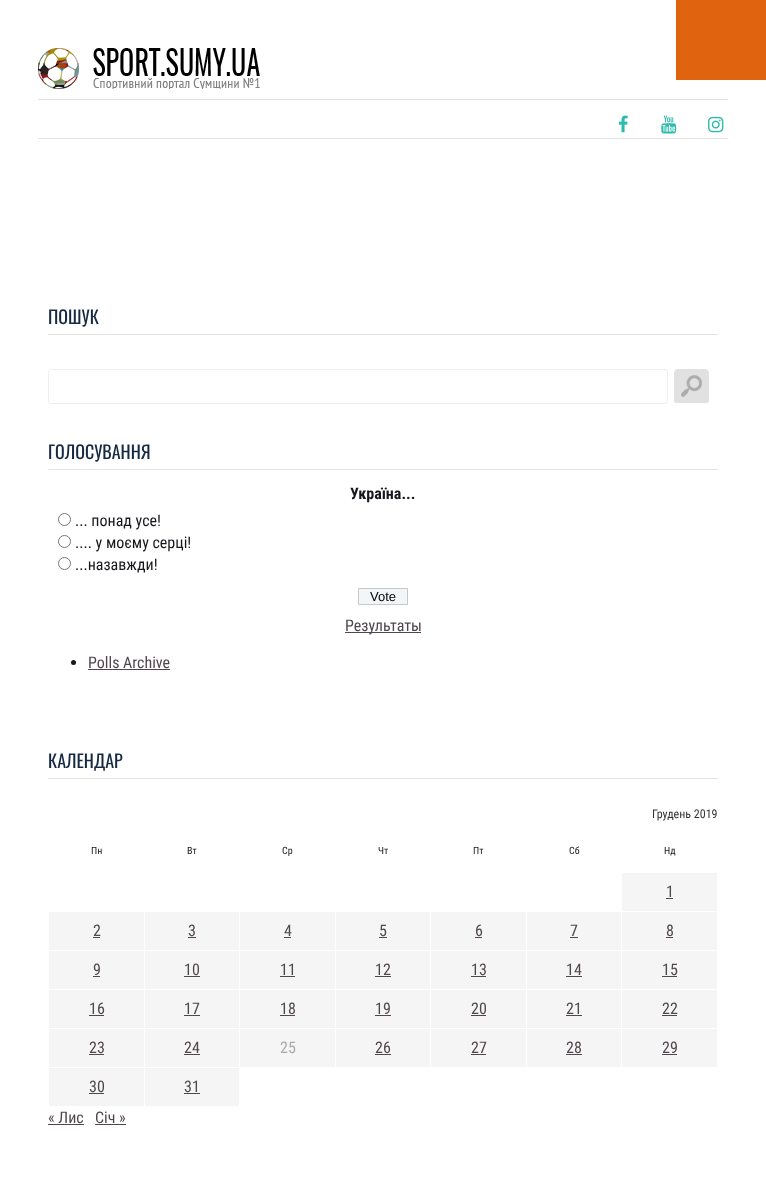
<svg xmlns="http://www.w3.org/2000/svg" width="766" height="1178">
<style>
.a{font:18px Oswald;fill:#172a43}
.b{font:bold 16px Roboto Condensed;fill:#18171d}
.c{font:16px Roboto Condensed;fill:#18171d}
.d{font:13px Liberation Sans;fill:#000}
.e{font:16px Roboto Condensed;fill:#50464e}
.f{font:12px Roboto Condensed;fill:#333}
.g{font:10px Roboto Condensed;fill:#18171d}
.h{font:16px Roboto Condensed;fill:#aaa}
</style>
<rect width="100%" height="100%" fill="#fff"/>
<path fill="#e1e1e1" d="M38 99h690v1H38z"/>
<path fill="#e1e1e1" d="M38 138h690v1H38z"/>
<path fill="#e06310" d="M676 0h90v80H676z"/>
<image href="1.png" x="618" y="115" width="10" height="18"/>
<image href="2.png" x="661" y="115" width="16" height="19"/>
<image href="3.png" x="708" y="116" width="16" height="17"/>
<image href="4.png" x="38" y="48" width="222" height="41"/>
<path fill="#e4e4e4" d="M48 334h670v1H48z"/>
<rect fill="none" stroke="#eee" x="48.5" y="369.5" width="619" height="34" rx="2.5"/>
<image href="5.png" x="674" y="369" width="35" height="34"/>
<path fill="#e4e4e4" d="M48 469h670v1H48z"/>
<circle fill="none" stroke="#767676" cx="64.5" cy="519.5" r="6"/>
<circle fill="none" stroke="#767676" cx="64.5" cy="541.5" r="6"/>
<circle fill="none" stroke="#767676" cx="64.5" cy="563.5" r="6"/>
<path fill="#f3f6f8" stroke="#c8c8c8" d="M358.5 588.5h49v16H358.5z"/>
<path fill="#50464e" d="M345 632h76v1H345z"/>
<circle fill="#18171d" cx="73.5" cy="662.5" r="2.5"/>
<path fill="#50464e" d="M88 669h82v1H88z"/>
<path fill="#e4e4e4" d="M48 778h670v1H48z"/>
<path fill="#f5f5f5" d="M622 873h95v38H622z"/>
<path fill="#50464e" d="M666 898h7v1H666z"/>
<path fill="#f5f5f5" d="M49 912h95v38H49z"/>
<path fill="#50464e" d="M93 937h7v1H93z"/>
<path fill="#f5f5f5" d="M145 912h94v38H145z"/>
<path fill="#50464e" d="M188 937h8v1H188z"/>
<path fill="#f5f5f5" d="M240 912h95v38H240z"/>
<path fill="#50464e" d="M284 937h7v1H284z"/>
<path fill="#f5f5f5" d="M336 912h94v38H336z"/>
<path fill="#50464e" d="M379 937h8v1H379z"/>
<path fill="#f5f5f5" d="M431 912h95v38H431z"/>
<path fill="#50464e" d="M475 937h7v1H475z"/>
<path fill="#f5f5f5" d="M527 912h94v38H527z"/>
<path fill="#50464e" d="M570 937h8v1H570z"/>
<path fill="#f5f5f5" d="M622 912h95v38H622z"/>
<path fill="#50464e" d="M666 937h7v1H666z"/>
<path fill="#f5f5f5" d="M49 951h95v38H49z"/>
<path fill="#50464e" d="M93 976h7v1H93z"/>
<path fill="#f5f5f5" d="M145 951h94v38H145z"/>
<path fill="#50464e" d="M184 976h16v1H184z"/>
<path fill="#f5f5f5" d="M240 951h95v38H240z"/>
<path fill="#50464e" d="M280 976h15v1H280z"/>
<path fill="#f5f5f5" d="M336 951h94v38H336z"/>
<path fill="#50464e" d="M375 976h16v1H375z"/>
<path fill="#f5f5f5" d="M431 951h95v38H431z"/>
<path fill="#50464e" d="M471 976h15v1H471z"/>
<path fill="#f5f5f5" d="M527 951h94v38H527z"/>
<path fill="#50464e" d="M566 976h16v1H566z"/>
<path fill="#f5f5f5" d="M622 951h95v38H622z"/>
<path fill="#50464e" d="M662 976h15v1H662z"/>
<path fill="#f5f5f5" d="M49 990h95v38H49z"/>
<path fill="#50464e" d="M89 1015h15v1H89z"/>
<path fill="#f5f5f5" d="M145 990h94v38H145z"/>
<path fill="#50464e" d="M184 1015h16v1H184z"/>
<path fill="#f5f5f5" d="M240 990h95v38H240z"/>
<path fill="#50464e" d="M280 1015h15v1H280z"/>
<path fill="#f5f5f5" d="M336 990h94v38H336z"/>
<path fill="#50464e" d="M375 1015h16v1H375z"/>
<path fill="#f5f5f5" d="M431 990h95v38H431z"/>
<path fill="#50464e" d="M471 1015h15v1H471z"/>
<path fill="#f5f5f5" d="M527 990h94v38H527z"/>
<path fill="#50464e" d="M566 1015h16v1H566z"/>
<path fill="#f5f5f5" d="M622 990h95v38H622z"/>
<path fill="#50464e" d="M662 1015h15v1H662z"/>
<path fill="#f5f5f5" d="M49 1029h95v38H49z"/>
<path fill="#50464e" d="M89 1054h15v1H89z"/>
<path fill="#f5f5f5" d="M145 1029h94v38H145z"/>
<path fill="#50464e" d="M184 1054h16v1H184z"/>
<path fill="#f5f5f5" d="M240 1029h95v38H240z"/>
<path fill="#f5f5f5" d="M336 1029h94v38H336z"/>
<path fill="#50464e" d="M375 1054h16v1H375z"/>
<path fill="#f5f5f5" d="M431 1029h95v38H431z"/>
<path fill="#50464e" d="M471 1054h15v1H471z"/>
<path fill="#f5f5f5" d="M527 1029h94v38H527z"/>
<path fill="#50464e" d="M566 1054h16v1H566z"/>
<path fill="#f5f5f5" d="M622 1029h95v38H622z"/>
<path fill="#50464e" d="M662 1054h15v1H662z"/>
<path fill="#f5f5f5" d="M49 1068h95v38H49z"/>
<path fill="#50464e" d="M89 1093h15v1H89z"/>
<path fill="#f5f5f5" d="M145 1068h94v38H145z"/>
<path fill="#50464e" d="M184 1093h16v1H184z"/>
<path fill="#50464e" d="M48 1124h36v1H48z"/>
<path fill="#50464e" d="M95 1124h31v1H95z"/>
<text class="a" x="48" y="324">ПОШУК</text>
<text class="a" x="48" y="459">ГОЛОСУВАННЯ</text>
<text class="b" x="350" y="499">Україна...</text>
<text class="c" x="75" y="526">... понад усе!</text>
<text class="c" x="75" y="548">.... у моєму серці!</text>
<text class="c" x="75" y="570">...назавжди!</text>
<text class="d" x="370" y="601">Vote</text>
<text class="e" x="345" y="631">Результаты</text>
<text class="e" x="88" y="668">Polls Archive</text>
<text class="a" x="48" y="768">КАЛЕНДАР</text>
<text class="f" x="652" y="818">Грудень 2019</text>
<text class="g" x="91" y="854">Пн</text>
<text class="g" x="187" y="854">Вт</text>
<text class="g" x="282" y="854">Ср</text>
<text class="g" x="378" y="854">Чт</text>
<text class="g" x="473" y="854">Пт</text>
<text class="g" x="569" y="854">Сб</text>
<text class="g" x="664" y="854">Нд</text>
<text class="e" x="666" y="897">1</text>
<text class="e" x="93" y="936">2</text>
<text class="e" x="188" y="936">3</text>
<text class="e" x="284" y="936">4</text>
<text class="e" x="379" y="936">5</text>
<text class="e" x="475" y="936">6</text>
<text class="e" x="570" y="936">7</text>
<text class="e" x="666" y="936">8</text>
<text class="e" x="93" y="975">9</text>
<text class="e" x="184" y="975">10</text>
<text class="e" x="280" y="975">11</text>
<text class="e" x="375" y="975">12</text>
<text class="e" x="471" y="975">13</text>
<text class="e" x="566" y="975">14</text>
<text class="e" x="662" y="975">15</text>
<text class="e" x="89" y="1014">16</text>
<text class="e" x="184" y="1014">17</text>
<text class="e" x="280" y="1014">18</text>
<text class="e" x="375" y="1014">19</text>
<text class="e" x="471" y="1014">20</text>
<text class="e" x="566" y="1014">21</text>
<text class="e" x="662" y="1014">22</text>
<text class="e" x="89" y="1053">23</text>
<text class="e" x="184" y="1053">24</text>
<text class="h" x="280" y="1053">25</text>
<text class="e" x="375" y="1053">26</text>
<text class="e" x="471" y="1053">27</text>
<text class="e" x="566" y="1053">28</text>
<text class="e" x="662" y="1053">29</text>
<text class="e" x="89" y="1092">30</text>
<text class="e" x="184" y="1092">31</text>
<text class="e" x="48" y="1123">« Лис</text>
<text class="e" x="95" y="1123">Січ »</text>
</svg>
